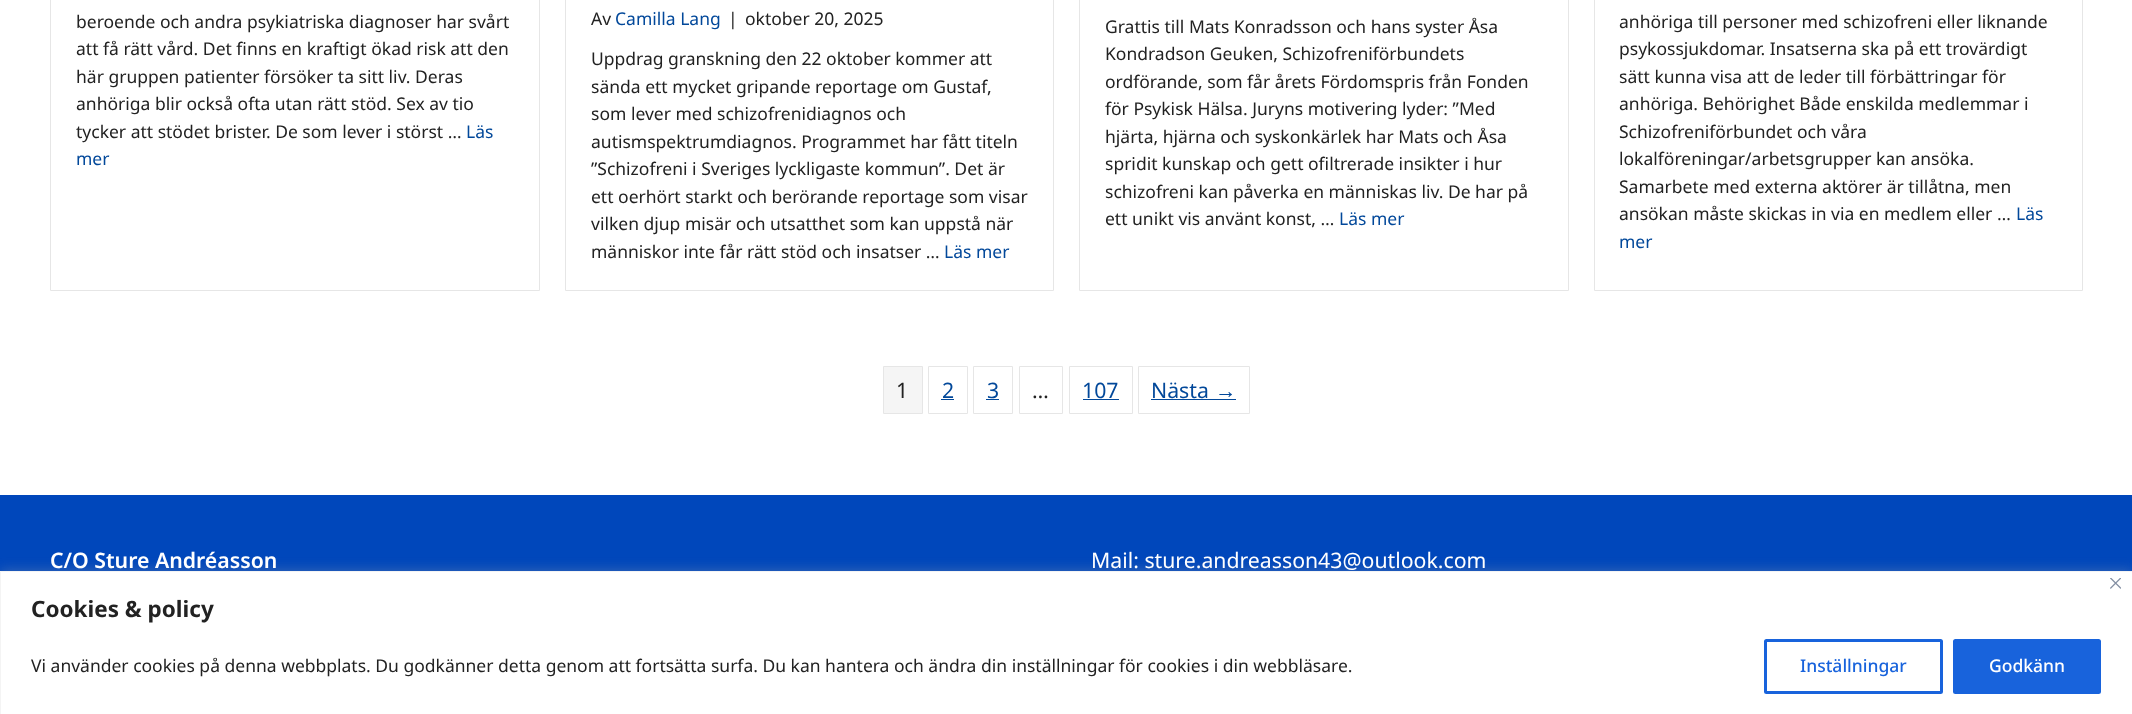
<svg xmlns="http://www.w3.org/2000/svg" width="2132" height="714">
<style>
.a{font:17.5px Noto Sans;fill:#222}
.b{font:17.5px Noto Sans;fill:#02489a}
.c{font:21.25px Noto Sans;fill:#222}
.d{font:21.25px Noto Sans;fill:#02489a}
.e{font:21.25px Liberation Sans;fill:#02489a}
.f{font:600 21.25px Noto Sans;fill:#fff}
.g{font:21.25px Noto Sans;fill:#fff}
.h{font:bold 22.5px Noto Sans;fill:#222}
.i{font:500 17.5px Noto Sans;fill:#1863dc}
.j{font:500 17.5px Noto Sans;fill:#fff}
</style>
<rect width="100%" height="100%" fill="#fff"/>
<path fill="none" stroke="#e6e6e6" d="M50.5 -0.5h489v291H50.5z"/>
<path fill="none" stroke="#e6e6e6" d="M565.5 -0.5h488v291H565.5z"/>
<path fill="none" stroke="#e6e6e6" d="M1079.5 -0.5h489v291H1079.5z"/>
<path fill="none" stroke="#e6e6e6" d="M1594.5 -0.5h488v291H1594.5z"/>
<path fill="#f5f5f5" stroke="#e6e6e6" d="M883.5 366.5h39v47H883.5z"/>
<path fill="none" stroke="#e6e6e6" d="M928.5 366.5h39v47H928.5z"/>
<path fill="#02489a" d="M941 399h13v1H941z"/>
<path fill="none" stroke="#e6e6e6" d="M973.5 366.5h39v47H973.5z"/>
<path fill="#02489a" d="M986 399h13v1H986z"/>
<path fill="none" stroke="#e6e6e6" d="M1019.5 366.5h43v47H1019.5z"/>
<path fill="none" stroke="#e6e6e6" d="M1069.5 366.5h63v47H1069.5z"/>
<path fill="#02489a" d="M1083 399h36v1H1083z"/>
<path fill="none" stroke="#e6e6e6" d="M1138.5 366.5h111v47H1138.5z"/>
<path fill="#02489a" d="M1151 399h85v1H1151z"/>
<path fill="#0047bb" d="M0 495h2132v76H0z"/>
<path fill="#acabab4d" filter="blur(6px)" d="M0 570h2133v144H0z"/>
<path fill="#fff" stroke="#f4f4f4" d="M0.5 571.5h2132v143H0.5z"/>
<image href="1.png" x="2110" y="578" width="11" height="11"/>
<rect fill="none" stroke="#1863dc" stroke-width="3" x="1765.5" y="640.5" width="176" height="52" rx="1"/>
<rect fill="#1863dc" stroke="#1863dc" stroke-width="3" x="1954.5" y="640.5" width="145" height="52" rx="1"/>
<text class="a" x="76" y="28">beroende och andra psykiatriska diagnoser har svårt</text>
<text class="a" x="76" y="55">att få rätt vård. Det finns en kraftigt ökad risk att den</text>
<text class="a" x="76" y="83">här gruppen patienter försöker ta sitt liv. Deras</text>
<text class="a" x="76" y="110">anhöriga blir också ofta utan rätt stöd. Sex av tio</text>
<text class="a" x="76" y="138">tycker att stödet brister. De som lever i störst …</text>
<text class="b" x="466" y="138">Läs</text>
<text class="b" x="76" y="165">mer</text>
<text class="a" x="591" y="25">Av</text>
<text class="b" x="615" y="25">Camilla Lang</text>
<text class="a" x="728" y="25">|</text>
<text class="a" x="745" y="25">oktober 20, 2025</text>
<text class="a" x="591" y="65">Uppdrag granskning den 22 oktober kommer att</text>
<text class="a" x="591" y="93">sända ett mycket gripande reportage om Gustaf,</text>
<text class="a" x="591" y="120">som lever med schizofrenidiagnos och</text>
<text class="a" x="591" y="148">autismspektrumdiagnos. Programmet har fått titeln</text>
<text class="a" x="591" y="175">”Schizofreni i Sveriges lyckligaste kommun”. Det är</text>
<text class="a" x="591" y="203">ett oerhört starkt och berörande reportage som visar</text>
<text class="a" x="591" y="230">vilken djup misär och utsatthet som kan uppstå när</text>
<text class="a" x="591" y="258">människor inte får rätt stöd och insatser …</text>
<text class="b" x="944" y="258">Läs mer</text>
<text class="a" x="1105" y="33">Grattis till Mats Konradsson och hans syster Åsa</text>
<text class="a" x="1105" y="60">Kondradson Geuken, Schizofreniförbundets</text>
<text class="a" x="1105" y="88">ordförande, som får årets Fördomspris från Fonden</text>
<text class="a" x="1105" y="115">för Psykisk Hälsa. Juryns motivering lyder: ”Med</text>
<text class="a" x="1105" y="143">hjärta, hjärna och syskonkärlek har Mats och Åsa</text>
<text class="a" x="1105" y="170">spridit kunskap och gett ofiltrerade insikter i hur</text>
<text class="a" x="1105" y="198">schizofreni kan påverka en människas liv. De har på</text>
<text class="a" x="1105" y="225">ett unikt vis använt konst, …</text>
<text class="b" x="1339" y="225">Läs mer</text>
<text class="a" x="1619" y="28">anhöriga till personer med schizofreni eller liknande</text>
<text class="a" x="1619" y="55">psykossjukdomar. Insatserna ska på ett trovärdigt</text>
<text class="a" x="1619" y="83">sätt kunna visa att de leder till förbättringar för</text>
<text class="a" x="1619" y="110">anhöriga. Behörighet Både enskilda medlemmar i</text>
<text class="a" x="1619" y="138">Schizofreniförbundet och våra</text>
<text class="a" x="1619" y="165">lokalföreningar/arbetsgrupper kan ansöka.</text>
<text class="a" x="1619" y="193">Samarbete med externa aktörer är tillåtna, men</text>
<text class="a" x="1619" y="220">ansökan måste skickas in via en medlem eller …</text>
<text class="b" x="2016" y="220">Läs</text>
<text class="b" x="1619" y="248">mer</text>
<text class="c" x="896" y="398">1</text>
<text class="d" x="942" y="398">2</text>
<text class="d" x="987" y="398">3</text>
<text class="c" x="1032" y="398">…</text>
<text class="d" x="1082" y="398">107</text>
<text class="d" x="1151" y="398">Nästa</text>
<text class="e" x="1215" y="398">→</text>
<text class="f" x="50" y="568">C/O Sture Andréasson</text>
<text class="g" x="1091" y="568">Mail: sture.andreasson43@outlook.com</text>
<text class="h" x="31" y="617">Cookies &amp; policy</text>
<text class="a" x="31" y="672">Vi använder cookies på denna webbplats. Du godkänner detta genom att fortsätta surfa. Du kan hantera och ändra din inställningar för cookies i din webbläsare.</text>
<text class="i" x="1800" y="672">Inställningar</text>
<text class="j" x="1989" y="672">Godkänn</text>
</svg>
